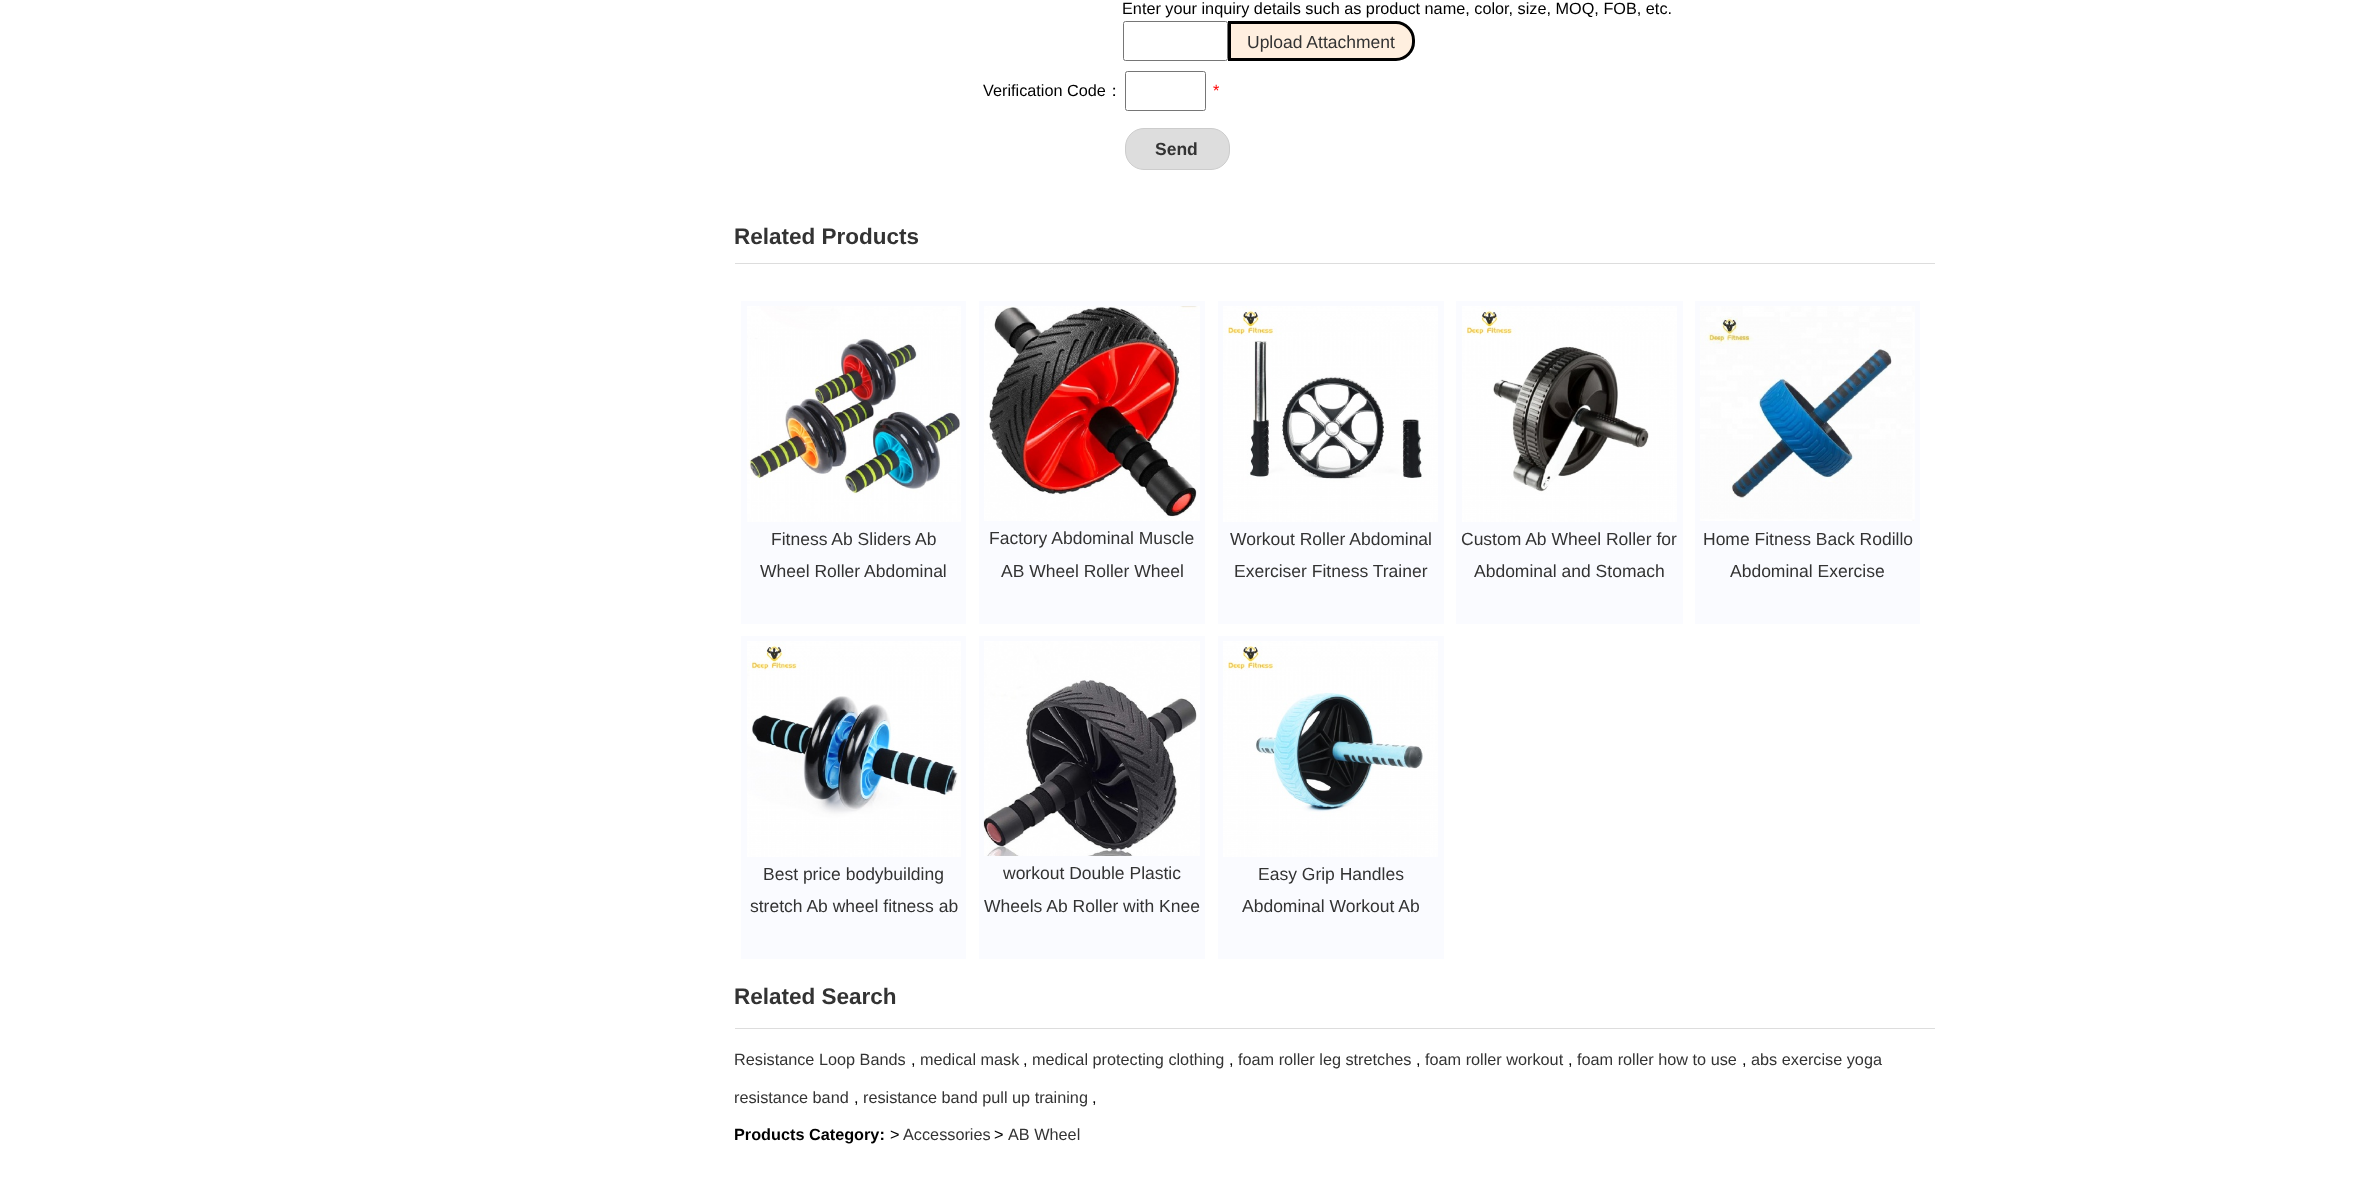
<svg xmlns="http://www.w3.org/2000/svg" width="2368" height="1200">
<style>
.a{font:16.25px Liberation Sans;fill:#000}
.b{font:17.5px Liberation Sans;fill:#333}
.c{font:500 16.25px WenQuanYi Zen Hei;fill:#000}
.d{font:16.25px Liberation Sans;fill:#f00}
.e{font:bold 17.5px Liberation Sans;fill:#333}
.f{font:bold 22.5px Liberation Sans;fill:#333}
.g{font:16.25px Liberation Sans;fill:#333}
.h{font:bold 16.25px Liberation Sans;fill:#000}
</style>
<rect width="100%" height="100%" fill="#fff"/>
<rect fill="none" stroke="#767676" x="1123.5" y="21.5" width="104" height="39" rx="2"/>
<path fill="#ffefdf" stroke="#000" stroke-width="3" d="M1229.5 22.5h166.5c9.5 0 17.5 8 17.5 17.5v2c0 9.5-8 17.5-17.5 17.5h-166.5z"/>
<rect fill="none" stroke="#767676" x="1125.5" y="71.5" width="80" height="39" rx="2"/>
<rect fill="#ddd" stroke="#ccc" x="1125.5" y="128.5" width="104" height="41" rx="18.5"/>
<path fill="#ddd" d="M735 263h1200v1H735z"/>
<path fill="#fafbff" d="M741 301h225v323H741z"/>
<image href="1.png" x="747" y="306" width="214" height="216"/>
<path fill="#fafbff" d="M979 301h226v323H979z"/>
<image href="2.png" x="984" y="306" width="216" height="215"/>
<path fill="#fafbff" d="M1218 301h226v323H1218z"/>
<image href="3.png" x="1223" y="306" width="215" height="216"/>
<path fill="#fafbff" d="M1456 301h227v323H1456z"/>
<image href="4.png" x="1462" y="306" width="215" height="216"/>
<path fill="#fafbff" d="M1695 301h225v323H1695z"/>
<image href="5.png" x="1700" y="306" width="215" height="215"/>
<path fill="#fafbff" d="M741 636h225v323H741z"/>
<image href="6.png" x="747" y="641" width="214" height="216"/>
<path fill="#fafbff" d="M979 636h226v323H979z"/>
<image href="7.png" x="983" y="641" width="217" height="215"/>
<path fill="#fafbff" d="M1218 636h226v323H1218z"/>
<image href="8.png" x="1223" y="641" width="215" height="216"/>
<path fill="#ddd" d="M735 1028h1200v1H735z"/>
<text class="a" x="1122" y="14">Enter your inquiry details such as product name, color, size, MOQ, FOB, etc.</text>
<text class="b" x="1247" y="48">Upload Attachment</text>
<text class="a" x="983" y="96">Verification Code</text>
<text class="c" x="1106" y="96">：</text>
<text class="d" x="1213" y="96">*</text>
<text class="e" x="1155" y="155">Send</text>
<text class="f" x="734" y="244">Related Products</text>
<text class="b" x="771" y="545">Fitness Ab Sliders Ab</text>
<text class="b" x="760" y="577">Wheel Roller Abdominal</text>
<text class="b" x="989" y="544">Factory Abdominal Muscle</text>
<text class="b" x="1001" y="577">AB Wheel Roller Wheel</text>
<text class="b" x="1230" y="545">Workout Roller Abdominal</text>
<text class="b" x="1234" y="577">Exerciser Fitness Trainer</text>
<text class="b" x="1461" y="545">Custom Ab Wheel Roller for</text>
<text class="b" x="1474" y="577">Abdominal and Stomach</text>
<text class="b" x="1703" y="545">Home Fitness Back Rodillo</text>
<text class="b" x="1730" y="577">Abdominal Exercise</text>
<text class="b" x="763" y="880">Best price bodybuilding</text>
<text class="b" x="750" y="912">stretch Ab wheel fitness ab</text>
<text class="b" x="1003" y="879">workout Double Plastic</text>
<text class="b" x="984" y="912">Wheels Ab Roller with Knee</text>
<text class="b" x="1258" y="880">Easy Grip Handles</text>
<text class="b" x="1242" y="912">Abdominal Workout Ab</text>
<text class="f" x="734" y="1004">Related Search</text>
<text class="g" x="734" y="1065">Resistance Loop Bands</text>
<text class="a" x="911" y="1065">,</text>
<text class="g" x="920" y="1065">medical mask</text>
<text class="a" x="1023" y="1065">,</text>
<text class="g" x="1032" y="1065">medical protecting clothing</text>
<text class="a" x="1229" y="1065">,</text>
<text class="g" x="1238" y="1065">foam roller leg stretches</text>
<text class="a" x="1416" y="1065">,</text>
<text class="g" x="1425" y="1065">foam roller workout</text>
<text class="a" x="1568" y="1065">,</text>
<text class="g" x="1577" y="1065">foam roller how to use</text>
<text class="a" x="1742" y="1065">,</text>
<text class="g" x="1751" y="1065">abs exercise yoga</text>
<text class="g" x="734" y="1103">resistance band</text>
<text class="a" x="854" y="1103">,</text>
<text class="g" x="863" y="1103">resistance band pull up training</text>
<text class="a" x="1092" y="1103">,</text>
<text class="h" x="734" y="1140">Products Category:</text>
<text class="a" x="890" y="1140">&gt;</text>
<text class="g" x="903" y="1140">Accessories</text>
<text class="a" x="994" y="1140">&gt;</text>
<text class="g" x="1008" y="1140">AB Wheel</text>
</svg>
